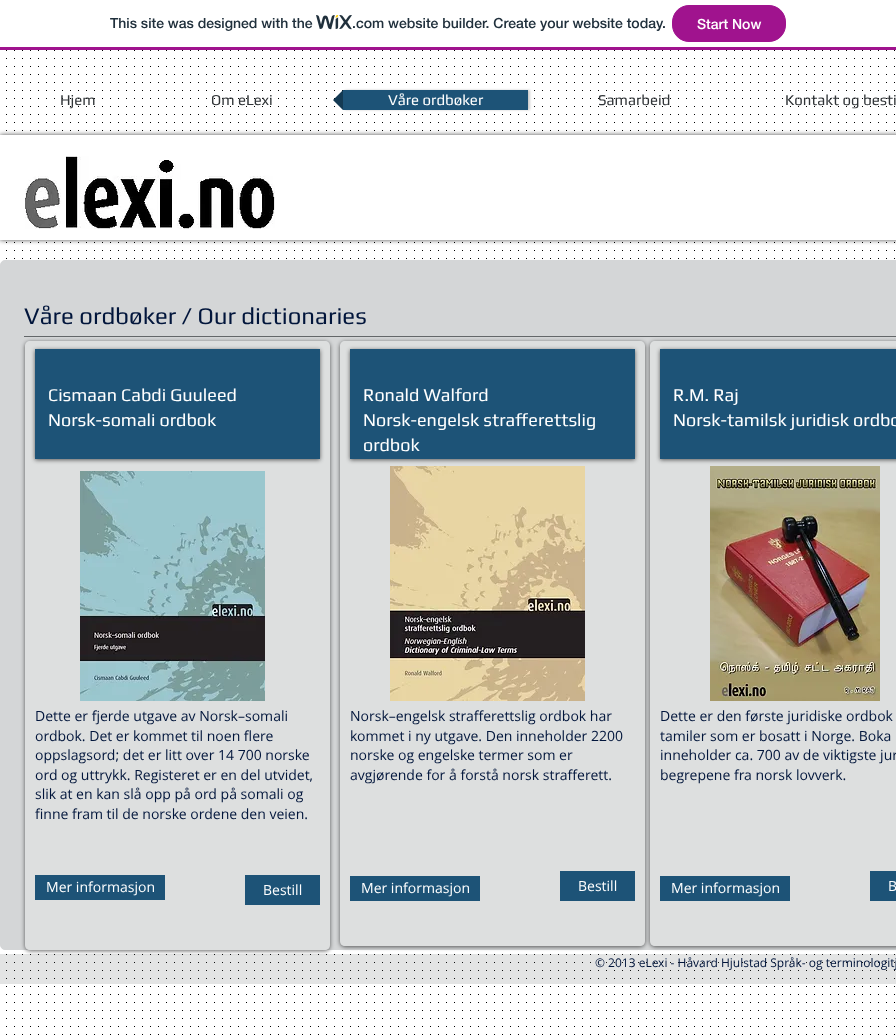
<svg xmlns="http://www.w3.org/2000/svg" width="896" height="1036">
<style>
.a{font:500 14px 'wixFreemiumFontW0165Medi';fill:#20303c}
.b{font:500 14px 'wixFreemiumFontW0165Medi';fill:#fff}
.c{font:15px Play;fill:#313538}
.d{font:15px Play;fill:#fff}
.e{font:24px Play;fill:#01153b}
.f{font:18px Play;fill:#fff}
.g{font:14px Open Sans;fill:#01153b}
.h{font:14px Open Sans;fill:#fff}
.i{font:12px Open Sans;fill:#01153b}
</style>
<defs>
<clipPath id="clip1"><path d="M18 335h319v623h-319zm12 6h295c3 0 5 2 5 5v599c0 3-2 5-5 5h-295c-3 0-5-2-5-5v-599c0-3 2-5 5-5z" clip-rule="evenodd"/></clipPath>
<clipPath id="clip2"><path d="M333 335h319v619h-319zm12 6h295c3 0 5 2 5 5v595c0 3-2 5-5 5h-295c-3 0-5-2-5-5v-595c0-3 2-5 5-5z" clip-rule="evenodd"/></clipPath>
<clipPath id="clip3"><path d="M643 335h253v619h-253zm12 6h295c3 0 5 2 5 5v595c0 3-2 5-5 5h-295c-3 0-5-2-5-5v-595c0-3 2-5 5-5z" clip-rule="evenodd"/></clipPath>
</defs>
<rect width="100%" height="100%" fill="#fff"/>
<path fill="#a0138e" d="M0 47h896v3H0z"/>
<image href="1.png" x="316" y="15" width="36" height="15"/>
<rect fill="#a0138e" stroke="#a0138e" x="672.5" y="5.5" width="113" height="36" rx="16.5"/>
<image href="2.png" x="6" y="50" width="889" height="985"/>
<path fill="#00000033" filter="blur(1px)" d="M345 90h185v20H345z"/>
<path fill="#143a53" d="M343 100h-10l10-10zm-10 0h10v10z"/>
<path fill="#1d5377" d="M343 90h185v20H343z"/>
<path fill="#000000b3" filter="blur(2.5px)" d="M0 135h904v105H0z"/>
<path fill="#fff" d="M0 135h896v105H0z"/>
<image href="3.png" x="25" y="156" width="250" height="73"/>
<rect fill="#d4d6d7" stroke="#d4d6d7" x="0.5" y="260.5" width="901" height="689" rx="4.5"/>
<path fill="#636769" d="M24 336h872v1H24z"/>
<g clip-path="url(#clip1)">
<rect fill="#00000099" filter="blur(2px)" x="25" y="342" width="305" height="609" rx="5"/>
</g>
<rect fill="#ffffff38" x="25" y="341" width="305" height="609" rx="5"/>
<path fill="#00000099" filter="blur(2px)" d="M35 350h285v110H35z"/>
<path fill="#1d5377" d="M35 349h285v110H35z"/>
<image href="4.png" x="80" y="471" width="185" height="230"/>
<path fill="#1d5377" d="M35 875h130v25H35z"/>
<path fill="#1d5377" d="M245 875h75v30H245z"/>
<g clip-path="url(#clip2)">
<rect fill="#00000099" filter="blur(2px)" x="340" y="342" width="305" height="605" rx="5"/>
</g>
<rect fill="#ffffff38" x="340" y="341" width="305" height="605" rx="5"/>
<path fill="#00000099" filter="blur(2px)" d="M350 350h285v110H350z"/>
<path fill="#1d5377" d="M350 349h285v110H350z"/>
<image href="5.png" x="390" y="466" width="195" height="235"/>
<path fill="#1d5377" d="M350 876h130v25H350z"/>
<path fill="#1d5377" d="M560 871h75v30H560z"/>
<g clip-path="url(#clip3)">
<rect fill="#00000099" filter="blur(2px)" x="650" y="342" width="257" height="605" rx="5"/>
</g>
<rect fill="#ffffff38" x="650" y="341" width="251" height="605" rx="5"/>
<path fill="#00000099" filter="blur(2px)" d="M660 350h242v110H660z"/>
<path fill="#1d5377" d="M660 349h236v110H660z"/>
<image href="6.png" x="710" y="466" width="170" height="235"/>
<path fill="#1d5377" d="M660 876h130v25H660z"/>
<path fill="#1d5377" d="M870 871h26v30H870z"/>
<path fill="#6367692e" d="M0 954h896v30H0z"/>
<text class="a" x="110" y="28">This site was designed with the</text>
<text class="a" x="352" y="28">.com website builder. Create your website today.</text>
<text class="b" x="697" y="29">Start Now</text>
<text class="c" x="60" y="105">Hjem</text>
<text class="c" x="211" y="105">Om eLexi</text>
<text class="d" x="388" y="105">Våre ordbøker</text>
<text class="c" x="598" y="105">Samarbeid</text>
<text class="c" x="785" y="105">Kontakt og besti</text>
<text class="e" x="24" y="324">Våre ordbøker / Our dictionaries</text>
<text class="f" x="48" y="401">Cismaan Cabdi Guuleed</text>
<text class="f" x="48" y="426">Norsk-somali ordbok</text>
<text class="g" x="35" y="721">Dette er fjerde utgave av Norsk–somali</text>
<text class="g" x="35" y="741">ordbok. Det er kommet til noen flere</text>
<text class="g" x="35" y="760">oppslagsord; det er litt over 14 700 norske</text>
<text class="g" x="35" y="780">ord og uttrykk. Registeret er en del utvidet,</text>
<text class="g" x="35" y="799">slik at en kan slå opp på ord på somali og</text>
<text class="g" x="35" y="819">finne fram til de norske ordene den veien.</text>
<text class="h" x="46" y="892">Mer informasjon</text>
<text class="h" x="263" y="895">Bestill</text>
<text class="f" x="363" y="401">Ronald Walford</text>
<text class="f" x="363" y="426">Norsk-engelsk strafferettslig</text>
<text class="f" x="363" y="451">ordbok</text>
<text class="g" x="350" y="721">Norsk–engelsk strafferettslig ordbok har</text>
<text class="g" x="350" y="741">kommet i ny utgave. Den inneholder 2200</text>
<text class="g" x="350" y="760">norske og engelske termer som er</text>
<text class="g" x="350" y="780">avgjørende for å forstå norsk strafferett.</text>
<text class="h" x="361" y="893">Mer informasjon</text>
<text class="h" x="578" y="891">Bestill</text>
<text class="f" x="673" y="401">R.M. Raj</text>
<text class="f" x="673" y="426">Norsk-tamilsk juridisk ordbo</text>
<text class="g" x="660" y="721">Dette er den første juridiske ordbok</text>
<text class="g" x="660" y="741">tamiler som er bosatt i Norge. Boka</text>
<text class="g" x="660" y="760">inneholder ca. 700 av de viktigste jur</text>
<text class="g" x="660" y="780">begrepene fra norsk lovverk.</text>
<text class="h" x="671" y="893">Mer informasjon</text>
<text class="h" x="888" y="891">B</text>
<text class="i" x="595" y="967">© 2013 eLexi - Håvard Hjulstad Språk- og terminologitj</text>
</svg>
